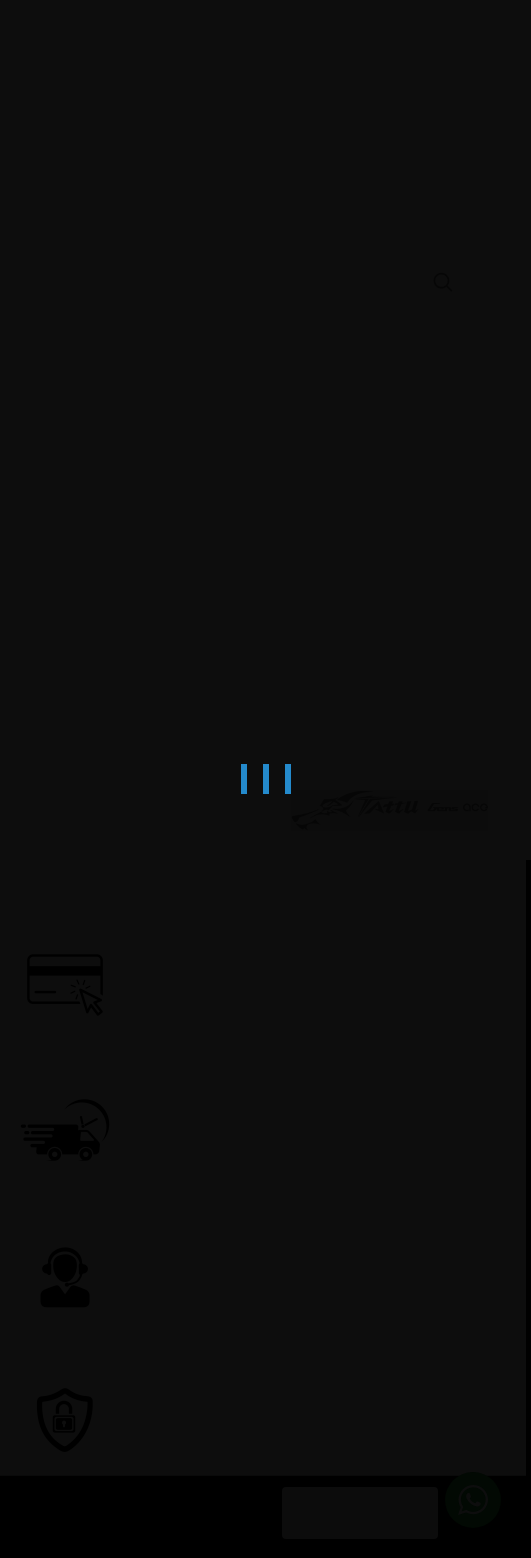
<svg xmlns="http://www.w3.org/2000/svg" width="531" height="1558">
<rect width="100%" height="100%" fill="#0d0d0d"/>
<image href="1.png" x="433" y="272" width="20" height="20"/>
<image href="2.png" x="291" y="790" width="197" height="41"/>
<path fill="#000" d="M0 860h531v698H0z"/>
<path fill="#0d0d0d" d="M0 860h526v615H0z"/>
<path fill="#0a0a0a" d="M0 1475h526v1H0z"/>
<image href="3.png" x="27" y="954" width="76" height="62"/>
<image href="4.png" x="20" y="1099" width="90" height="62"/>
<image href="5.png" x="40" y="1247" width="50" height="61"/>
<image href="6.png" x="36" y="1388" width="57" height="64"/>
<path fill="#248acc" d="M241 764h6v30H241z"/>
<path fill="#248acc" d="M263 764h6v30H263z"/>
<path fill="#248acc" d="M285 764h6v30H285z"/>
<rect fill="#0c0c0c" x="282" y="1487" width="156" height="52" rx="4"/>
<circle fill="#020903" cx="473" cy="1500" r="28"/>
<image href="7.png" x="458" y="1485" width="30" height="30"/>
</svg>
